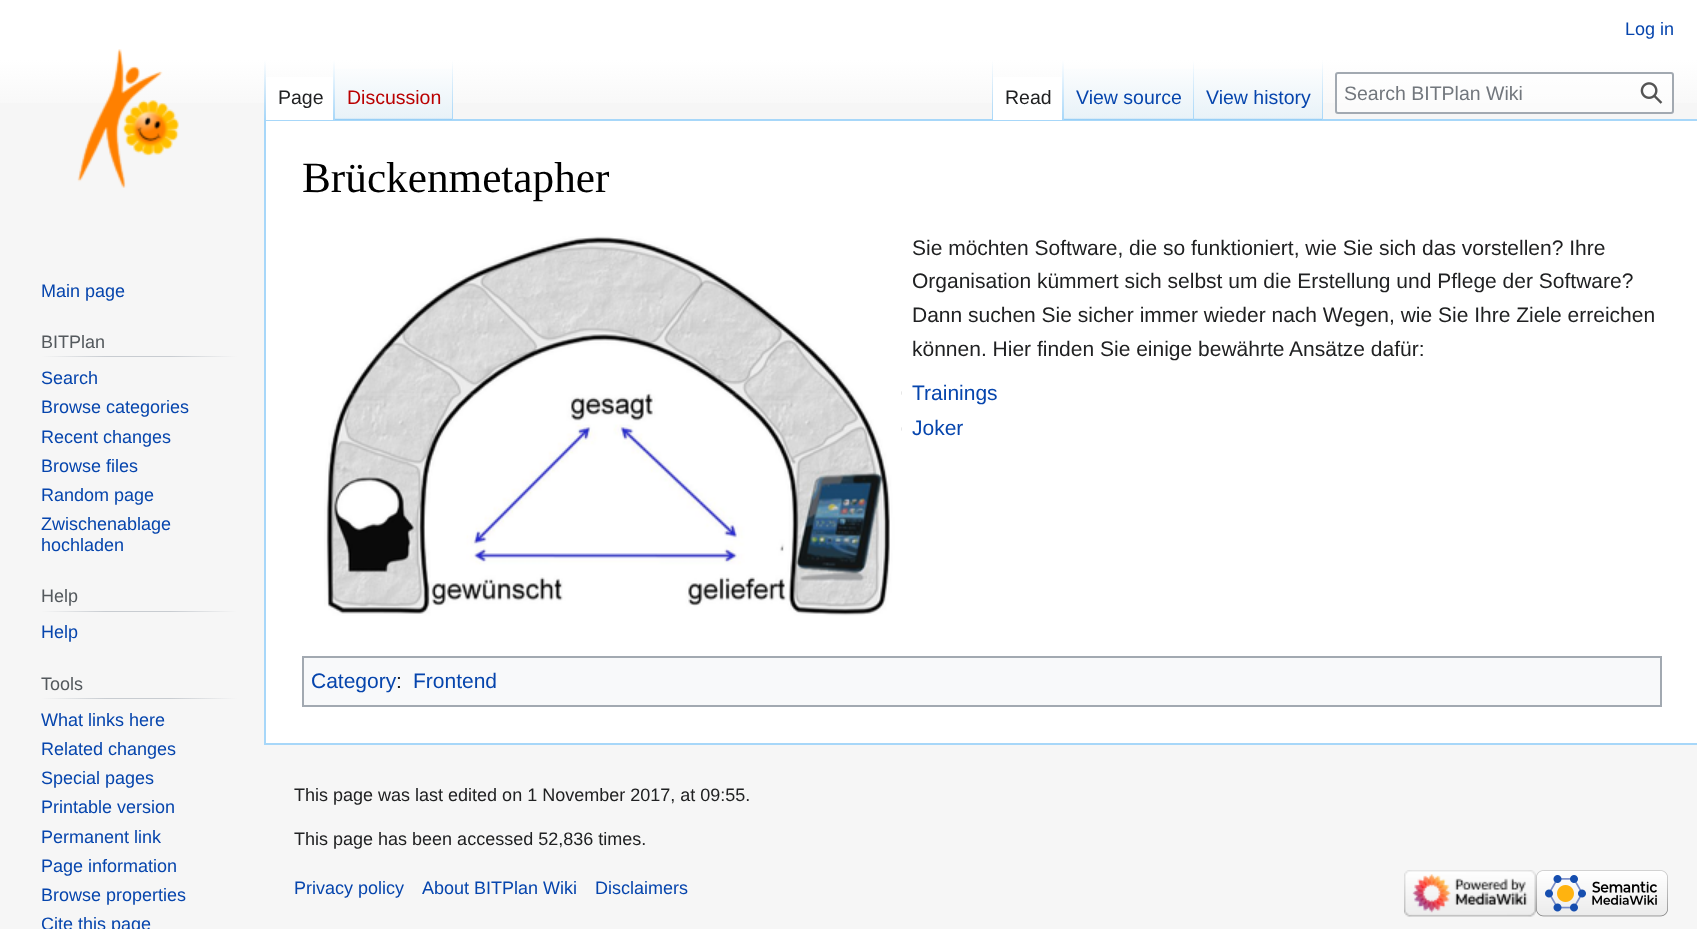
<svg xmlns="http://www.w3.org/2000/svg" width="1697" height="929">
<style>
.a{font:18px Liberation Sans;fill:#0645ad}
.b{font:19.5px Liberation Sans;fill:#202122}
.c{font:19.5px Liberation Sans;fill:#ba0000}
.d{font:19.5px Liberation Sans;fill:#0645ad}
.e{font:19.5px Liberation Sans;fill:#72777d}
.f{font:18px Liberation Sans;fill:#54595d}
.g{font:43.25px Liberation Serif;fill:#000}
.h{font:21px Liberation Sans;fill:#202122}
.i{font:21px Liberation Sans;fill:#0645ad}
.j{font:18px Liberation Sans;fill:#202122}
</style>
<defs>
<linearGradient id="g1" gradientUnits="userSpaceOnUse" x1="849" y1="0" x2="849" y2="120"><stop offset="0.5" stop-color="#fff"/><stop offset="1" stop-color="#f6f6f6"/></linearGradient>
<linearGradient id="g2" gradientUnits="userSpaceOnUse" x1="265" y1="60" x2="265" y2="120"><stop offset="0" stop-color="#a7d7f9" stop-opacity="0"/><stop offset="1" stop-color="#a7d7f9"/></linearGradient>
<linearGradient id="g3" gradientUnits="userSpaceOnUse" x1="334" y1="60" x2="334" y2="120"><stop offset="0" stop-color="#fff"/><stop offset="1" stop-color="#a7d7f9"/></linearGradient>
<linearGradient id="g4" gradientUnits="userSpaceOnUse" x1="394" y1="120" x2="394" y2="60"><stop offset="0" stop-color="#77c1f6"/><stop offset="0.03" stop-color="#e8f2f8"/><stop offset="1" stop-color="#fff"/></linearGradient>
<linearGradient id="g5" gradientUnits="userSpaceOnUse" x1="452" y1="60" x2="452" y2="120"><stop offset="0" stop-color="#a7d7f9" stop-opacity="0"/><stop offset="1" stop-color="#a7d7f9"/></linearGradient>
<linearGradient id="g6" gradientUnits="userSpaceOnUse" x1="992" y1="60" x2="992" y2="120"><stop offset="0" stop-color="#a7d7f9" stop-opacity="0"/><stop offset="1" stop-color="#a7d7f9"/></linearGradient>
<linearGradient id="g7" gradientUnits="userSpaceOnUse" x1="1063" y1="60" x2="1063" y2="120"><stop offset="0" stop-color="#fff"/><stop offset="1" stop-color="#a7d7f9"/></linearGradient>
<linearGradient id="g8" gradientUnits="userSpaceOnUse" x1="1129" y1="120" x2="1129" y2="60"><stop offset="0" stop-color="#77c1f6"/><stop offset="0.03" stop-color="#e8f2f8"/><stop offset="1" stop-color="#fff"/></linearGradient>
<linearGradient id="g9" gradientUnits="userSpaceOnUse" x1="1193" y1="60" x2="1193" y2="120"><stop offset="0" stop-color="#a7d7f9" stop-opacity="0"/><stop offset="1" stop-color="#a7d7f9"/></linearGradient>
<linearGradient id="g10" gradientUnits="userSpaceOnUse" x1="1259" y1="120" x2="1259" y2="60"><stop offset="0" stop-color="#77c1f6"/><stop offset="0.03" stop-color="#e8f2f8"/><stop offset="1" stop-color="#fff"/></linearGradient>
<linearGradient id="g11" gradientUnits="userSpaceOnUse" x1="1322" y1="60" x2="1322" y2="120"><stop offset="0" stop-color="#a7d7f9" stop-opacity="0"/><stop offset="1" stop-color="#a7d7f9"/></linearGradient>
<linearGradient id="g12" gradientUnits="userSpaceOnUse" x1="41" y1="356" x2="237" y2="356"><stop offset="0" stop-color="#f6f6f6"/><stop offset="0.33" stop-color="#c8ccd1"/><stop offset="0.66" stop-color="#c8ccd1"/><stop offset="1" stop-color="#f6f6f6"/></linearGradient>
<linearGradient id="g13" gradientUnits="userSpaceOnUse" x1="41" y1="611" x2="237" y2="611"><stop offset="0" stop-color="#f6f6f6"/><stop offset="0.33" stop-color="#c8ccd1"/><stop offset="0.66" stop-color="#c8ccd1"/><stop offset="1" stop-color="#f6f6f6"/></linearGradient>
<linearGradient id="g14" gradientUnits="userSpaceOnUse" x1="41" y1="698" x2="237" y2="698"><stop offset="0" stop-color="#f6f6f6"/><stop offset="0.33" stop-color="#c8ccd1"/><stop offset="0.66" stop-color="#c8ccd1"/><stop offset="1" stop-color="#f6f6f6"/></linearGradient>
</defs>
<rect width="100%" height="100%" fill="#f6f6f6"/>
<path fill="url(#g1)" d="M0 0h1697v103H0z"/>
<path fill="#a7d7f9" d="M264 119h1433v2H264z"/>
<path fill="#a7d7f9" d="M264 743h1433v2H264z"/>
<path fill="#a7d7f9" d="M264 119h2v625H264z"/>
<path fill="url(#g2)" d="M264 60h2v60H264z"/>
<path fill="#fff" d="M266 77h67v43H266z"/>
<path fill="url(#g3)" d="M333 60h2v60H333z"/>
<path fill="url(#g4)" d="M335 69h118v51H335z"/>
<path fill="url(#g5)" d="M452 60h1v60H452z"/>
<path fill="url(#g6)" d="M992 60h1v60H992z"/>
<path fill="#fff" d="M993 77h69v43H993z"/>
<path fill="url(#g7)" d="M1062 60h2v60H1062z"/>
<path fill="url(#g8)" d="M1064 69h130v51H1064z"/>
<path fill="url(#g9)" d="M1193 60h1v60H1193z"/>
<path fill="url(#g10)" d="M1194 69h129v51H1194z"/>
<path fill="url(#g11)" d="M1322 60h1v60H1322z"/>
<rect fill="#ffffff80" stroke="#a2a9b1" stroke-width="2" x="1336" y="73" width="337" height="40" rx="2"/>
<image href="1.png" x="1640" y="82" width="23" height="22"/>
<image href="2.png" x="77" y="49" width="102" height="139"/>
<path fill="url(#g12)" d="M41 356h196v1H41z"/>
<path fill="url(#g13)" d="M41 611h196v1H41z"/>
<path fill="url(#g14)" d="M41 698h196v1H41z"/>
<path fill="#fff" d="M266 121h1431v622H266z"/>
<image href="4.png" x="901" y="391" width="1" height="4"/>
<image href="4.png" x="901" y="427" width="1" height="4"/>
<image href="3.png" x="324" y="236" width="578" height="380"/>
<path fill="#f8f9fa" stroke="#a2a9b1" stroke-width="2" d="M303 657h1358v49H303z"/>
<image href="5.png" x="1404" y="870" width="132" height="47"/>
<image href="6.png" x="1536" y="870" width="132" height="47"/>
<text class="a" x="1625" y="35">Log in</text>
<text class="b" x="278" y="104">Page</text>
<text class="c" x="347" y="104">Discussion</text>
<text class="b" x="1005" y="104">Read</text>
<text class="d" x="1076" y="104">View source</text>
<text class="d" x="1206" y="104">View history</text>
<text class="e" x="1344" y="100">Search BITPlan Wiki</text>
<text class="a" x="41" y="297">Main page</text>
<text class="f" x="41" y="348">BITPlan</text>
<text class="a" x="41" y="384">Search</text>
<text class="a" x="41" y="413">Browse categories</text>
<text class="a" x="41" y="443">Recent changes</text>
<text class="a" x="41" y="472">Browse files</text>
<text class="a" x="41" y="501">Random page</text>
<text class="a" x="41" y="530">Zwischenablage</text>
<text class="a" x="41" y="551">hochladen</text>
<text class="f" x="41" y="602">Help</text>
<text class="a" x="41" y="638">Help</text>
<text class="f" x="41" y="690">Tools</text>
<text class="a" x="41" y="726">What links here</text>
<text class="a" x="41" y="755">Related changes</text>
<text class="a" x="41" y="784">Special pages</text>
<text class="a" x="41" y="813">Printable version</text>
<text class="a" x="41" y="843">Permanent link</text>
<text class="a" x="41" y="872">Page information</text>
<text class="a" x="41" y="901">Browse properties</text>
<text class="a" x="41" y="930">Cite this page</text>
<text class="g" x="302" y="192">Brückenmetapher</text>
<text class="h" x="912" y="255">Sie möchten Software, die so funktioniert, wie Sie sich das vorstellen? Ihre</text>
<text class="h" x="912" y="288">Organisation kümmert sich selbst um die Erstellung und Pflege der Software?</text>
<text class="h" x="912" y="322">Dann suchen Sie sicher immer wieder nach Wegen, wie Sie Ihre Ziele erreichen</text>
<text class="h" x="912" y="356">können. Hier finden Sie einige bewährte Ansätze dafür:</text>
<text class="i" x="912" y="400">Trainings</text>
<text class="i" x="912" y="435">Joker</text>
<text class="i" x="311" y="688">Category</text>
<text class="h" x="396" y="688">:</text>
<text class="i" x="413" y="688">Frontend</text>
<text class="j" x="294" y="801">This page was last edited on 1 November 2017, at 09:55.</text>
<text class="j" x="294" y="845">This page has been accessed 52,836 times.</text>
<text class="a" x="294" y="894">Privacy policy</text>
<text class="a" x="422" y="894">About BITPlan Wiki</text>
<text class="a" x="595" y="894">Disclaimers</text>
</svg>
